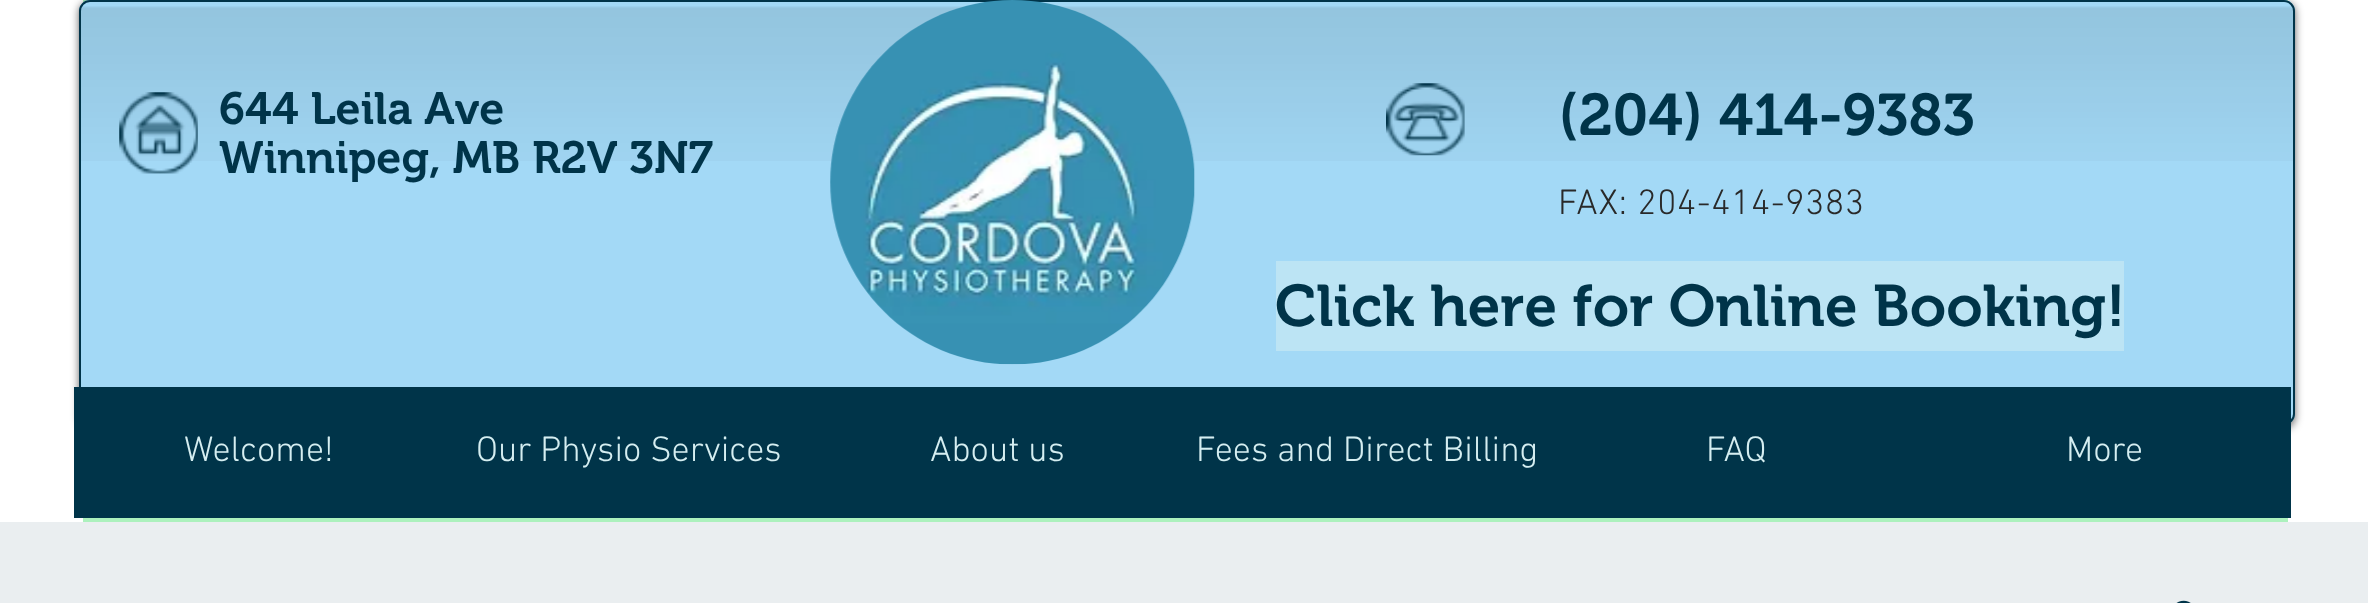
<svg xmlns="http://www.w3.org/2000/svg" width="2368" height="603">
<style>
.a{font:600 45px 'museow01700';fill:#003449}
.b{font:600 58.5px 'museow01700';fill:#003449}
.c{font:300 36px 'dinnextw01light';letter-spacing:0.75px;fill:#292929}
.d{font:300 36px 'dinnextw01light';fill:#d5eef1}
</style>
<rect width="100%" height="100%" fill="#eaeef0"/>
<path fill="#fff" d="M0 0h2368v522H0z"/>
<path fill="#acf1bd" d="M83 0h2205v522H83z"/>
<rect fill="#00000099" filter="blur(4.5px)" x="79" y="2" width="2216" height="426" rx="11"/>
<rect fill="#a3d9f6" x="79" width="2216" height="425" rx="11"/>
<image href="2.png" x="78" y="6" width="2218" height="155"/>
<rect fill="none" stroke="#003449" stroke-width="2" x="80" y="1" width="2214" height="423" rx="10"/>
<image href="1.png" x="830" y="0" width="365" height="365"/>
<image href="3.png" x="119" y="92" width="79" height="82"/>
<image href="4.png" x="1386" y="83" width="79" height="73"/>
<path fill="#bce4f4" d="M1276 261h848v90H1276z"/>
<path fill="#003449" d="M74 387h2217v131H74z"/>
<image href="5.png" x="2176" y="600" width="15" height="3"/>
<text class="a" x="219" y="124">644 Leila Ave</text>
<text class="a" x="219" y="173">Winnipeg, MB R2V 3N7</text>
<text class="b" x="1558" y="135">(204) 414-9383</text>
<text class="c" x="1558" y="214">FAX: 204-414-9383</text>
<text class="b" x="1275" y="326">Click here for Online Booking!</text>
<text class="d" x="184" y="461">Welcome!</text>
<text class="d" x="476" y="461">Our Physio Services</text>
<text class="d" x="930" y="461">About us</text>
<text class="d" x="1196" y="461">Fees and Direct Billing</text>
<text class="d" x="1706" y="461">FAQ</text>
<text class="d" x="2066" y="461">More</text>
</svg>
